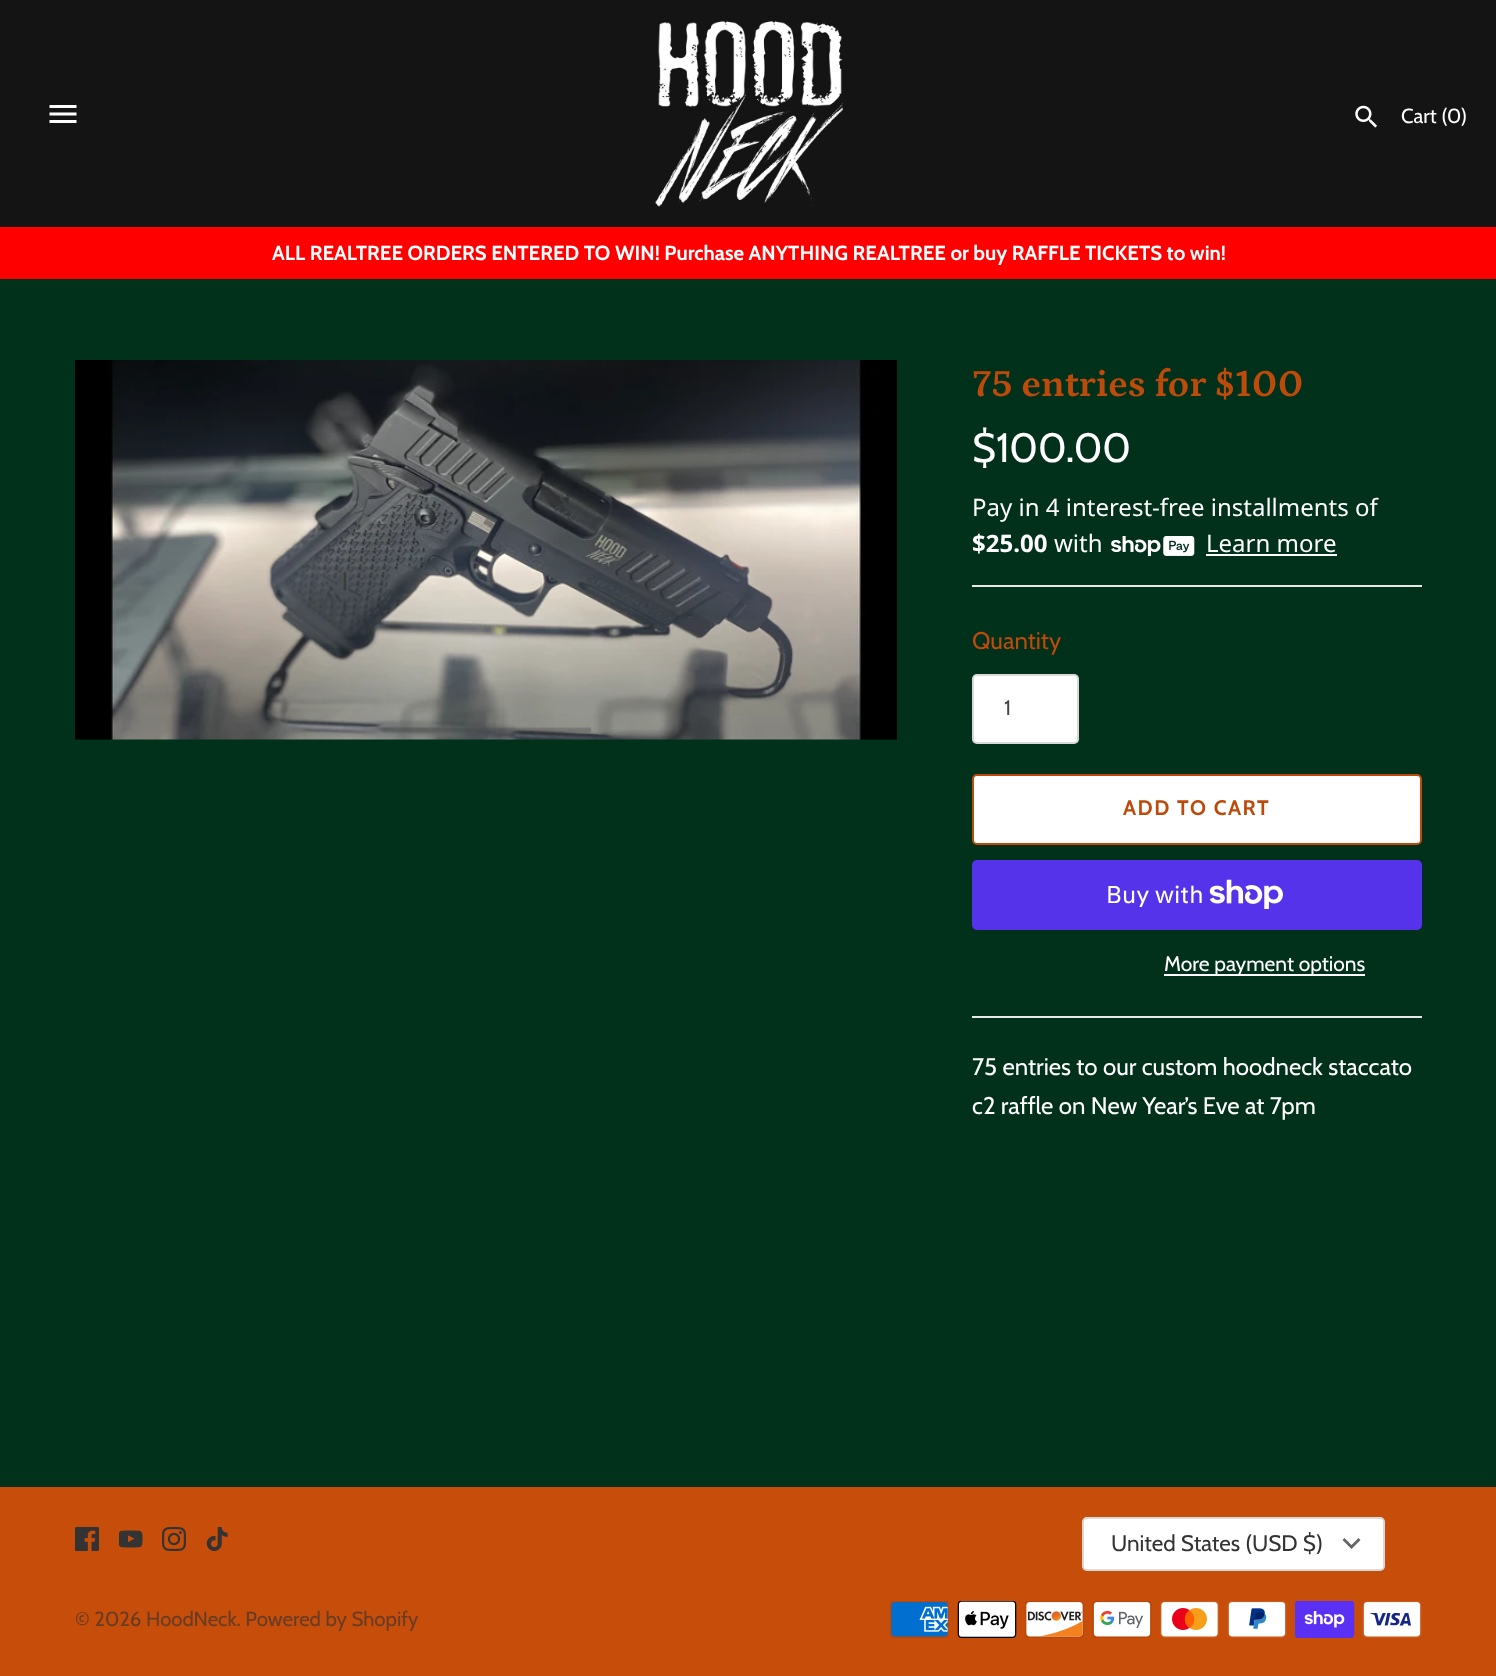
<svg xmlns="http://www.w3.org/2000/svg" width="1496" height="1676">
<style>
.a{font:20.4px Cabin;fill:#fff}
.b{font:bold 20.4px Cabin;fill:#fff}
.c{font:bold 38.5px Petrona;fill:#bc4a0b}
.d{font:41px Cabin;fill:#fff}
.e{font:24px Noto Sans;fill:#fff}
.f{font:bold 24px Noto Sans;fill:#fff}
.g{font:24px Cabin;fill:#bc4a0b}
.h{font:21px Cabin;fill:#444}
.i{font:bold 21px Cabin;letter-spacing:1.5px;fill:#bc4a0b}
.j{font:24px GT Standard;fill:#fff}
.k{font:21px Cabin;fill:#fff}
.l{font:24px Cabin;fill:#fff}
.m{font:22.5px Cabin;fill:#333}
.n{font:20.4px Cabin;fill:#663c25}
</style>
<rect width="100%" height="100%" fill="#01301b"/>
<path fill="#141414" d="M0 0h1496v227H0z"/>
<image href="1.png" x="49" y="105" width="28" height="18"/>
<image href="2.png" x="655" y="21" width="188" height="186"/>
<image href="3.png" x="1355" y="105" width="22" height="23"/>
<path fill="#f00" d="M0 227h1496v52H0z"/>
<image href="4.png" x="75" y="360" width="822" height="380"/>
<image href="5.png" x="1111" y="536" width="84" height="21"/>
<path fill="#fff" d="M1206 554h131v2H1206z"/>
<path fill="#e7e7e7" d="M972 585h450v2H972z"/>
<rect fill="#fff" x="972" y="674" width="107" height="70" rx="5"/>
<rect fill="none" stroke="#00000026" stroke-width="2" x="973" y="675" width="105" height="68" rx="4"/>
<rect fill="#fff" stroke="#bc4a0b" stroke-width="2" x="973" y="775" width="448" height="69" rx="4"/>
<rect fill="#5433eb" x="972" y="860" width="450" height="70" rx="5"/>
<image href="6.png" x="1209" y="879" width="74" height="30"/>
<path fill="#fff" d="M1164 974h201v2H1164z"/>
<path fill="#e7e7e7" d="M972 1016h450v2H972z"/>
<path fill="#c64d0a" d="M0 1487h1496v189H0z"/>
<image href="7.png" x="75" y="1527" width="24" height="24"/>
<image href="8.png" x="119" y="1530" width="24" height="18"/>
<image href="9.png" x="162" y="1527" width="24" height="24"/>
<image href="10.png" x="206" y="1527" width="22" height="24"/>
<rect fill="#fff" x="1082" y="1517" width="303" height="54" rx="5"/>
<rect fill="none" stroke="#00000026" stroke-width="2" x="1083" y="1518" width="301" height="52" rx="4"/>
<path fill="#666" d="M1344.5 1538l7 7l7-7l2 2l-9 9l-9-9z"/>
<image href="11.png" x="890" y="1601" width="59" height="37"/>
<image href="12.png" x="957" y="1601" width="60" height="37"/>
<image href="13.png" x="1025" y="1601" width="59" height="37"/>
<image href="14.png" x="1092" y="1601" width="60" height="37"/>
<image href="15.png" x="1160" y="1601" width="59" height="37"/>
<image href="16.png" x="1227" y="1601" width="60" height="37"/>
<image href="17.png" x="1295" y="1601" width="60" height="37"/>
<image href="18.png" x="1362" y="1601" width="60" height="37"/>
<text class="a" x="1401" y="123">Cart (0)</text>
<text class="b" x="272" y="260">ALL REALTREE ORDERS ENTERED TO WIN! Purchase ANYTHING REALTREE or buy RAFFLE TICKETS to win!</text>
<text class="c" x="972" y="396">75 entries for $100</text>
<text class="d" x="972" y="462">$100.00</text>
<text class="e" x="972" y="516">Pay in 4 interest-free installments of</text>
<text class="f" x="972" y="552">$25.00</text>
<text class="e" x="1054" y="552">with</text>
<text class="e" x="1206" y="552">Learn more</text>
<text class="g" x="972" y="649">Quantity</text>
<text class="h" x="1004" y="715">1</text>
<text class="i" x="1123" y="815">ADD TO CART</text>
<text class="j" x="1106" y="903">Buy with</text>
<text class="k" x="1164" y="971">More payment options</text>
<text class="l" x="972" y="1075">75 entries to our custom hoodneck staccato</text>
<text class="l" x="972" y="1114">c2 raffle on New Year’s Eve at 7pm</text>
<text class="m" x="1111" y="1551">United States (USD $)</text>
<text class="n" x="75" y="1626">© 2026 HoodNeck. Powered by Shopify</text>
</svg>
